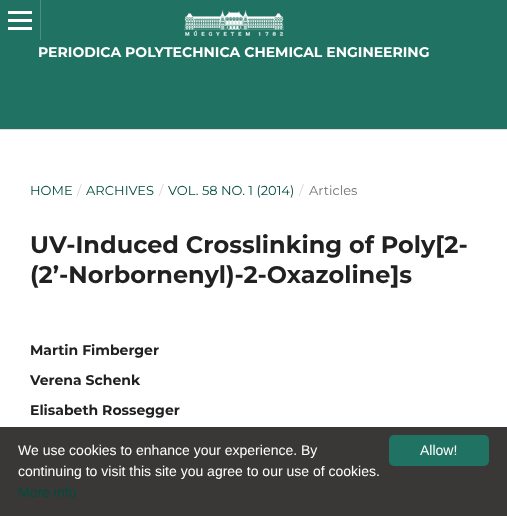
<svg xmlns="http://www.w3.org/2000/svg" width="507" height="516">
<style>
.a{font:bold 14px Montserrat;fill:#fff}
.b{font:13px Montserrat;fill:#024c3d}
.c{font:13px Montserrat;fill:#d6d6d6}
.d{font:13px Montserrat;fill:#757575}
.e{font:bold 24px Montserrat;fill:#212121}
.f{font:bold 14px Montserrat;fill:#212121}
.g{font:14px Liberation Sans;fill:#fff}
.h{font:14px Liberation Sans;fill:#024c3d}
</style>
<rect width="100%" height="100%" fill="#fff"/>
<path fill="#207262" d="M0 0h507v129H0z"/>
<path fill="#ddd" d="M0 129h507v1H0z"/>
<path fill="#4d8e81" d="M40 0h1v40H40z"/>
<path fill="#fff" d="M8 27h24v3H8z"/>
<path fill="#fff" d="M8 11h24v3H8z"/>
<path fill="#fff" d="M8 19h24v3H8z"/>
<image href="1.png" x="184" y="10" width="100" height="26"/>
<path fill="#3a3737" d="M0 427h507v89H0z"/>
<rect fill="#207262" x="389" y="435" width="100" height="31" rx="5"/>
<text class="a" x="38" y="57">PERIODICA POLYTECHNICA CHEMICAL ENGINEERING</text>
<text class="b" x="30" y="195">HOME</text>
<text class="c" x="77" y="195">/</text>
<text class="b" x="86" y="195">ARCHIVES</text>
<text class="c" x="159" y="195">/</text>
<text class="b" x="168" y="195">VOL. 58 NO. 1 (2014)</text>
<text class="c" x="299" y="195">/</text>
<text class="d" x="309" y="195">Articles</text>
<text class="e" x="30" y="253">UV-Induced Crosslinking of Poly[2-</text>
<text class="e" x="30" y="283">(2’-Norbornenyl)-2-Oxazoline]s</text>
<text class="f" x="30" y="355">Martin Fimberger</text>
<text class="f" x="30" y="385">Verena Schenk</text>
<text class="f" x="30" y="415">Elisabeth Rossegger</text>
<text class="g" x="18" y="455">We use cookies to enhance your experience. By</text>
<text class="g" x="18" y="476">continuing to visit this site you agree to our use of cookies.</text>
<text class="h" x="18" y="497">More info</text>
<text class="g" x="420" y="455">Allow!</text>
</svg>
